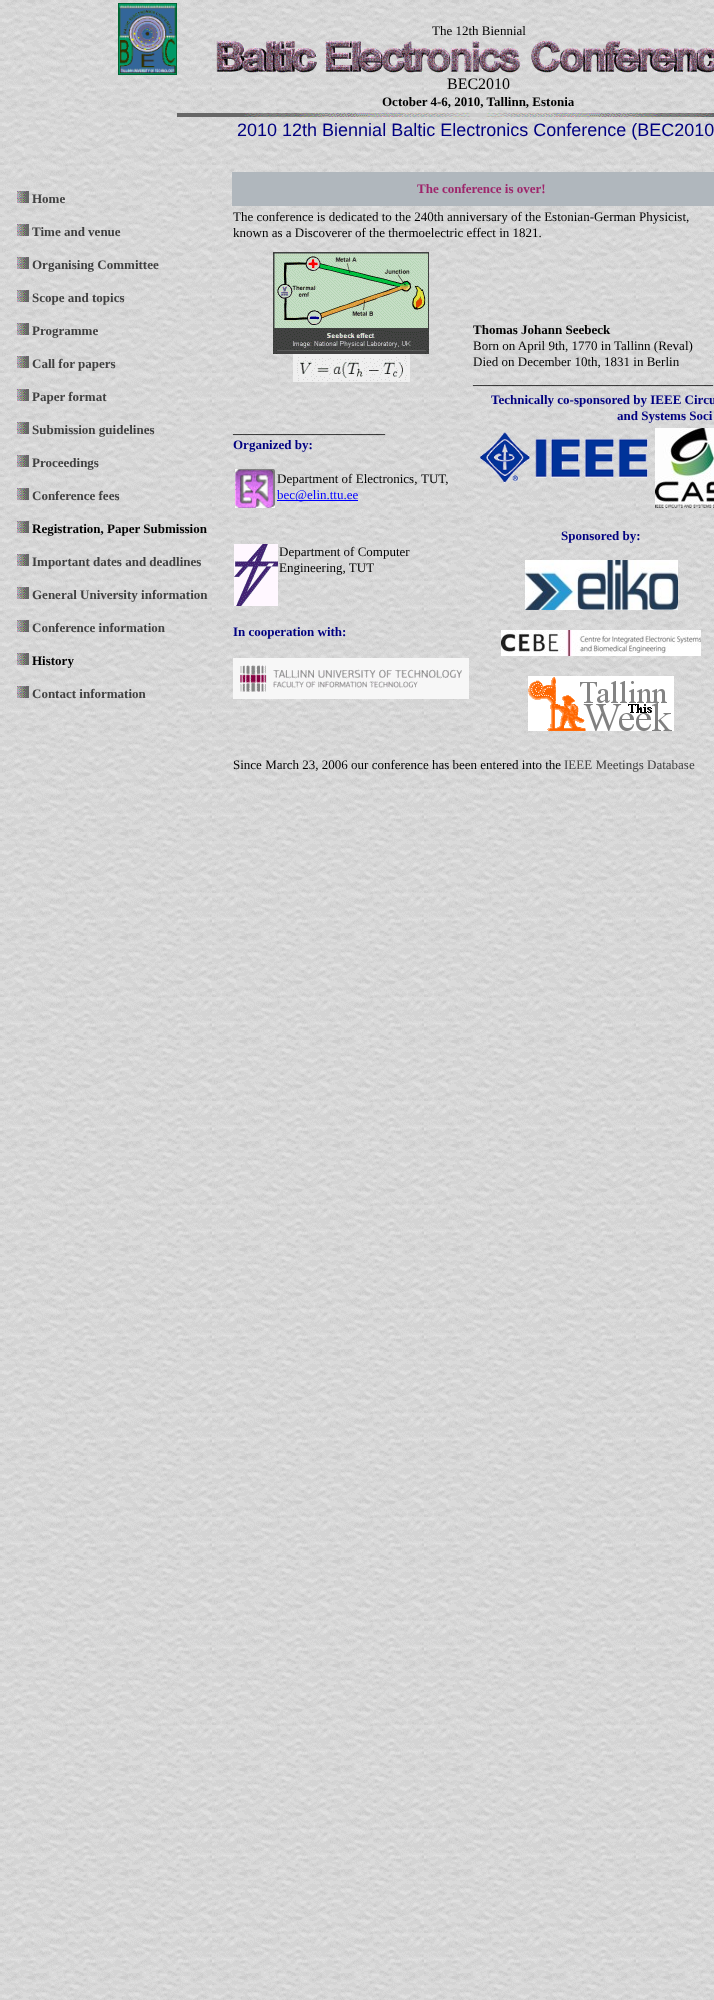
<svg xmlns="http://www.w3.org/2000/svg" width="714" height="2000">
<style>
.a{font:13px Liberation Serif;fill:#000}
.b{font:16px Liberation Serif;fill:#000}
.c{font:bold 13px Liberation Serif;fill:#000}
.d{font:18px Liberation Sans;fill:#000080}
.e{font:bold 13px Liberation Serif;fill:#404040}
.f{font:bold 13px Liberation Serif;fill:#9e256b}
.g{font:bold 13px Liberation Serif;fill:#000080}
.h{font:13px Liberation Serif;fill:#00f}
.i{font:13px Liberation Serif;fill:#404040}
</style>
<rect width="100%" height="100%" fill="#fff"/>
<image href="1.png" x="0" y="0" width="714" height="2000"/>
<image href="2.png" x="118" y="3" width="59" height="72"/>
<image href="3.png" x="216" y="40" width="498" height="33"/>
<image href="4.png" x="177" y="113" width="537" height="4"/>
<image href="5.png" x="17" y="191" width="12" height="12"/>
<image href="5.png" x="17" y="224" width="12" height="12"/>
<image href="5.png" x="17" y="257" width="12" height="12"/>
<image href="5.png" x="17" y="290" width="12" height="12"/>
<image href="5.png" x="17" y="323" width="12" height="12"/>
<image href="5.png" x="17" y="356" width="12" height="12"/>
<image href="5.png" x="17" y="389" width="12" height="12"/>
<image href="5.png" x="17" y="422" width="12" height="12"/>
<image href="5.png" x="17" y="455" width="12" height="12"/>
<image href="5.png" x="17" y="488" width="12" height="12"/>
<image href="5.png" x="17" y="521" width="12" height="12"/>
<image href="5.png" x="17" y="554" width="12" height="12"/>
<image href="5.png" x="17" y="587" width="12" height="12"/>
<image href="5.png" x="17" y="620" width="12" height="12"/>
<image href="5.png" x="17" y="653" width="12" height="12"/>
<image href="5.png" x="17" y="686" width="12" height="12"/>
<path fill="#b0b7bd" d="M232 172h482v34H232z"/>
<image href="6.png" x="273" y="252" width="156" height="102"/>
<image href="7.png" x="293" y="354" width="117" height="28"/>
<image href="8.png" x="235" y="469" width="40" height="39"/>
<path fill="#00f" d="M277 500h81v1H277z"/>
<image href="9.png" x="479" y="432" width="169" height="51"/>
<image href="10.png" x="655" y="428" width="59" height="80"/>
<image href="11.png" x="525" y="560" width="153" height="50"/>
<image href="12.png" x="501" y="630" width="200" height="26"/>
<image href="13.png" x="528" y="676" width="146" height="55"/>
<image href="14.png" x="234" y="544" width="44" height="62"/>
<image href="15.png" x="233" y="658" width="236" height="41"/>
<text class="a" x="432" y="35">The 12th Biennial</text>
<text class="b" x="447" y="89">BEC2010</text>
<text class="c" x="382" y="106">October 4-6, 2010, Tallinn, Estonia</text>
<text class="d" x="237" y="136">2010 12th Biennial Baltic Electronics Conference (BEC2010</text>
<text class="e" x="32" y="203">Home</text>
<text class="e" x="32" y="236">Time and venue</text>
<text class="e" x="32" y="269">Organising Committee</text>
<text class="e" x="32" y="302">Scope and topics</text>
<text class="e" x="32" y="335">Programme</text>
<text class="e" x="32" y="368">Call for papers</text>
<text class="e" x="32" y="401">Paper format</text>
<text class="e" x="32" y="434">Submission guidelines</text>
<text class="e" x="32" y="467">Proceedings</text>
<text class="e" x="32" y="500">Conference fees</text>
<text class="c" x="32" y="533">Registration, Paper Submission</text>
<text class="e" x="32" y="566">Important dates and deadlines</text>
<text class="e" x="32" y="599">General University information</text>
<text class="e" x="32" y="632">Conference information</text>
<text class="c" x="32" y="665">History</text>
<text class="e" x="32" y="698">Contact information</text>
<text class="f" x="417" y="193">The conference is over!</text>
<text class="a" x="233" y="221">The conference is dedicated to the 240th anniversary of the Estonian-German Physicist,</text>
<text class="a" x="233" y="237">known as a Discoverer of the thermoelectric effect in 1821.</text>
<text class="c" x="473" y="334">Thomas Johann Seebeck</text>
<text class="a" x="473" y="350">Born on April 9th, 1770 in Tallinn (Reval)</text>
<text class="a" x="473" y="366">Died on December 10th, 1831 in Berlin</text>
<text class="b" x="473" y="384">______________________________</text>
<text class="g" x="491" y="404">Technically co-sponsored by IEEE Circu</text>
<text class="g" x="617" y="420">and Systems Soci</text>
<text class="b" x="233" y="433">___________________</text>
<text class="g" x="233" y="449">Organized by:</text>
<text class="a" x="277" y="483">Department of Electronics,</text>
<text class="a" x="421" y="483">TUT,</text>
<text class="h" x="277" y="499">bec@elin.ttu.ee</text>
<text class="g" x="561" y="540">Sponsored by:</text>
<text class="a" x="279" y="556">Department of Computer</text>
<text class="a" x="279" y="572">Engineering, TUT</text>
<text class="g" x="233" y="636">In cooperation with:</text>
<text class="a" x="233" y="769">Since March 23, 2006 our conference has been entered into the</text>
<text class="i" x="564" y="769">IEEE Meetings Database</text>
</svg>
